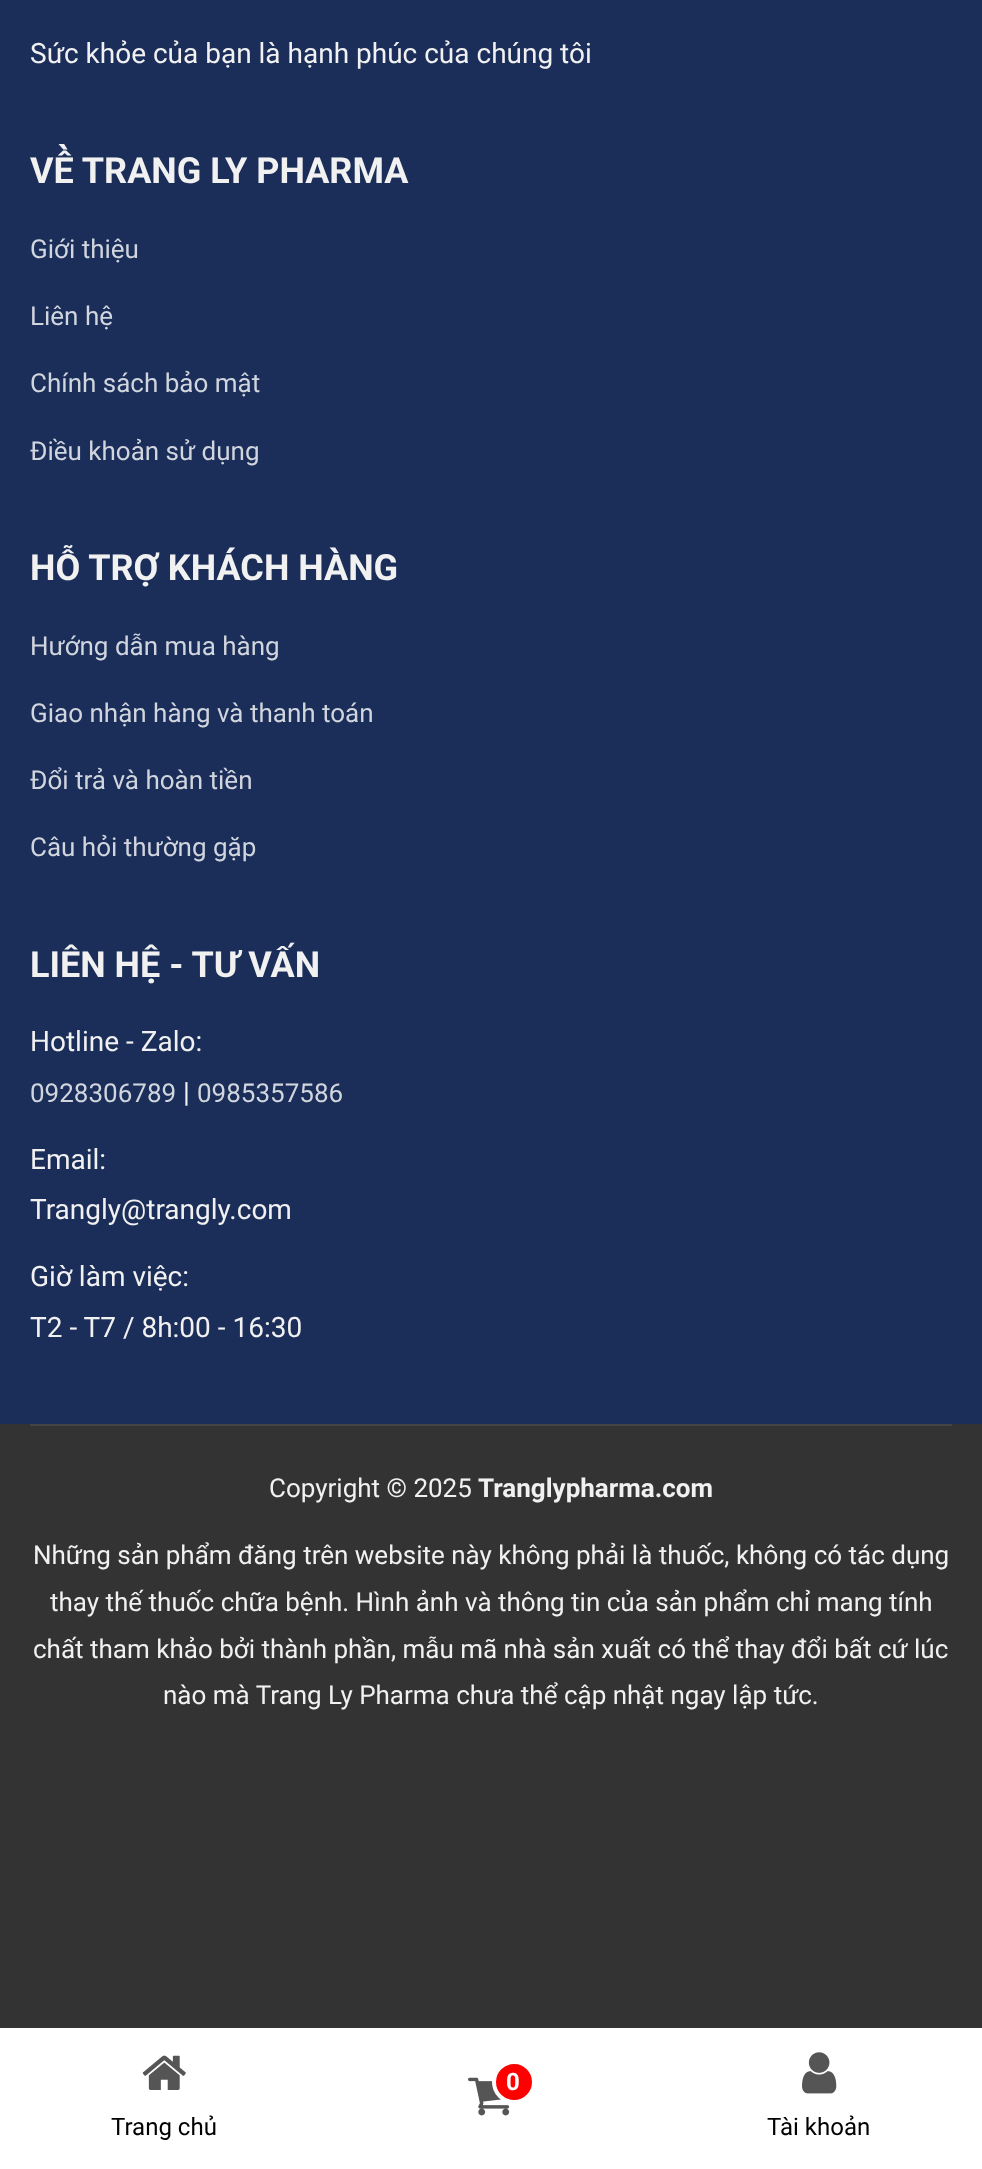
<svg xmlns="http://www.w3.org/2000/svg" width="982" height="2169">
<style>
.a{font:28px Roboto;fill:#f1f1f1}
.b{font:bold 36px Roboto;fill:#f1f1f1}
.c{font:26px Roboto;fill:#d1d5de}
.d{font:26px Roboto;fill:#f1f1f1}
.e{font:bold 26px Roboto;fill:#f1f1f1}
.f{font:bold 24px Roboto;fill:#fff}
.g{font:24px Roboto;fill:#000}
</style>
<rect width="100%" height="100%" fill="#333"/>
<path fill="#1b2e59" d="M0 0h982v1424H0z"/>
<path fill="#444" d="M30 1424h922v2H30z"/>
<path fill="#fff" d="M0 2028h982v141H0z"/>
<image href="1.png" x="468" y="2077" width="42" height="39"/>
<circle fill="#f00" stroke="#fff" stroke-width="4" cx="514" cy="2082" r="20"/>
<image href="2.png" x="142" y="2055" width="44" height="35"/>
<image href="3.png" x="802" y="2052" width="35" height="42"/>
<text class="a" x="30" y="63">Sức khỏe của bạn là hạnh phúc của chúng tôi</text>
<text class="b" x="30" y="183">VỀ TRANG LY PHARMA</text>
<text class="c" x="30" y="258">Giới thiệu</text>
<text class="c" x="30" y="325">Liên hệ</text>
<text class="c" x="30" y="392">Chính sách bảo mật</text>
<text class="c" x="30" y="460">Điều khoản sử dụng</text>
<text class="b" x="30" y="580">HỖ TRỢ KHÁCH HÀNG</text>
<text class="c" x="30" y="655">Hướng dẫn mua hàng</text>
<text class="c" x="30" y="722">Giao nhận hàng và thanh toán</text>
<text class="c" x="30" y="789">Đổi trả và hoàn tiền</text>
<text class="c" x="30" y="856">Câu hỏi thường gặp</text>
<text class="b" x="30" y="977">LIÊN HỆ - TƯ VẤN</text>
<text class="a" x="30" y="1051">Hotline - Zalo:</text>
<text class="c" x="30" y="1102">0928306789</text>
<text class="a" x="183" y="1102">|</text>
<text class="c" x="197" y="1102">0985357586</text>
<text class="a" x="30" y="1169">Email:</text>
<text class="a" x="30" y="1219">Trangly@trangly.com</text>
<text class="a" x="30" y="1286">Giờ làm việc:</text>
<text class="a" x="30" y="1337">T2 - T7 / 8h:00 - 16:30</text>
<text class="d" x="269" y="1497">Copyright © 2025</text>
<text class="e" x="478" y="1497">Tranglypharma.com</text>
<text class="d" x="33" y="1564">Những sản phẩm đăng trên website này không phải là thuốc, không có tác dụng</text>
<text class="d" x="50" y="1611">thay thế thuốc chữa bệnh. Hình ảnh và thông tin của sản phẩm chỉ mang tính</text>
<text class="d" x="33" y="1658">chất tham khảo bởi thành phần, mẫu mã nhà sản xuất có thể thay đổi bất cứ lúc</text>
<text class="d" x="163" y="1704">nào mà Trang Ly Pharma chưa thể cập nhật ngay lập tức.</text>
<text class="f" x="506" y="2090">0</text>
<text class="g" x="111" y="2135">Trang chủ</text>
<text class="g" x="767" y="2135">Tài khoản</text>
</svg>
